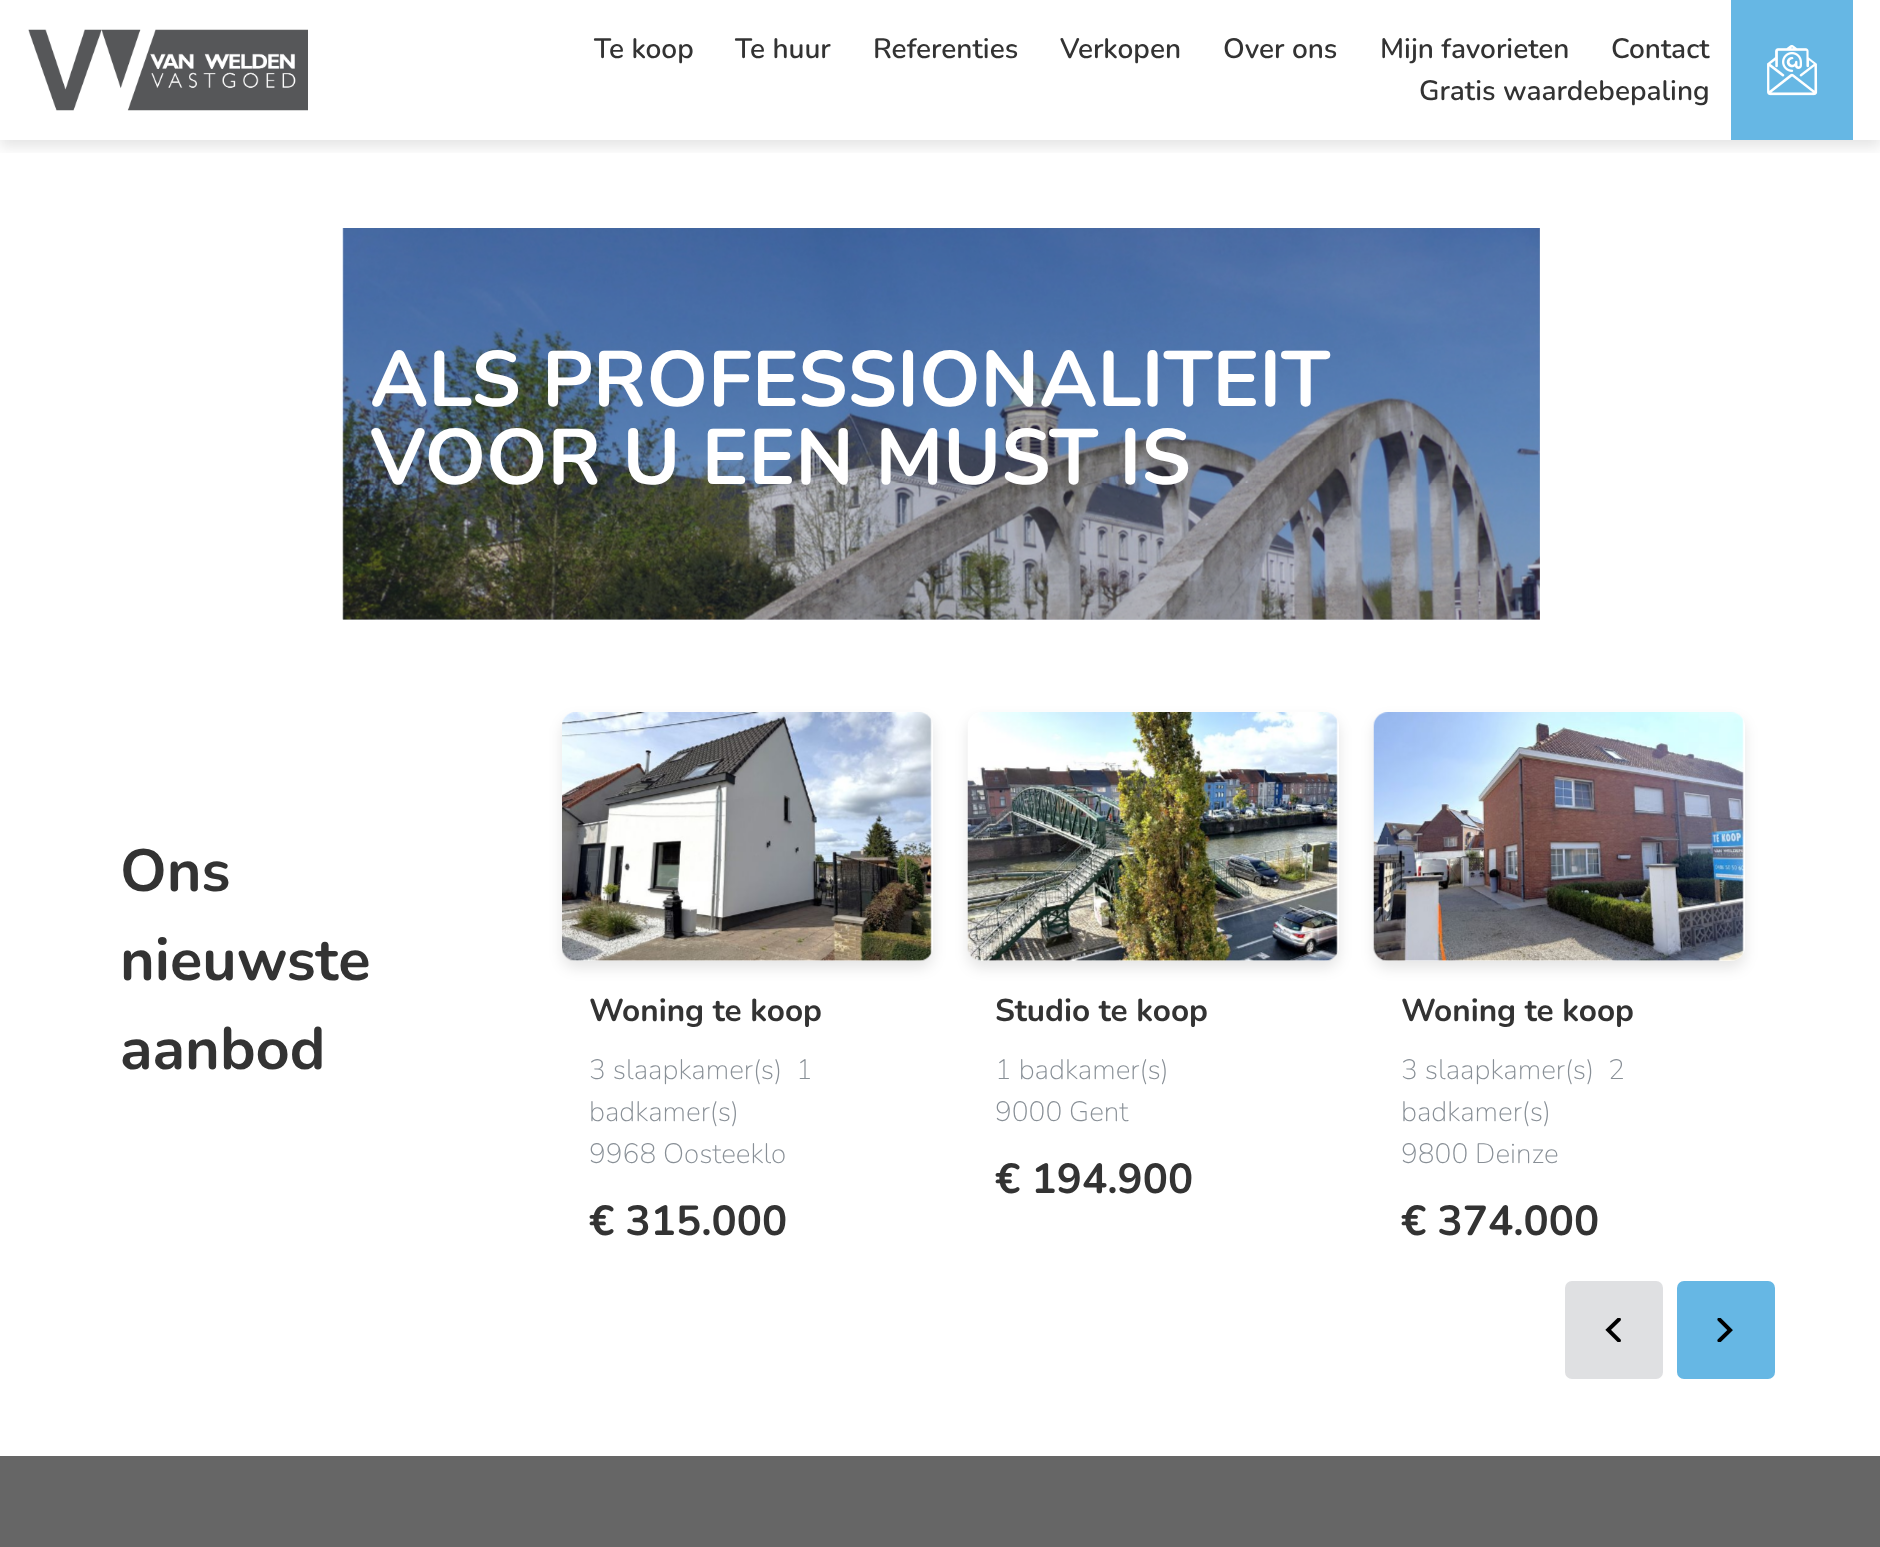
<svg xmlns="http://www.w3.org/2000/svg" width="1880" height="1547">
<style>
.a{font:600 28px Nunito;fill:#333}
.b{font:bold 78.4px Nunito;fill:#fff}
.c{font:bold 59.5px Nunito;fill:#333}
.d{font:bold 31.5px Nunito;fill:#333}
.e{font:200 28px Nunito;fill:#888f96}
.f{font:bold 42px Nunito;fill:#333}
</style>
<defs>
<clipPath id="clip1"><path d="M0 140h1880v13H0z"/></clipPath>
<clipPath id="clip2"><path d="M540 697h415v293h-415zm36 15h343c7.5 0 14 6.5 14 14v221c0 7.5-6.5 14-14 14h-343c-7.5 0-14-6.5-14-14v-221c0-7.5 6.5-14 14-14z" clip-rule="evenodd"/></clipPath>
<clipPath id="clip3"><path d="M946 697h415v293h-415zm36 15h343c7.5 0 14 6.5 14 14v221c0 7.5-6.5 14-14 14h-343c-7.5 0-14-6.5-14-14v-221c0-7.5 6.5-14 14-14z" clip-rule="evenodd"/></clipPath>
<clipPath id="clip4"><path d="M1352 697h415v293h-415zm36 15h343c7.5 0 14 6.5 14 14v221c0 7.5-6.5 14-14 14h-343c-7.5 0-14-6.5-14-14v-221c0-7.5 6.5-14 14-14z" clip-rule="evenodd"/></clipPath>
</defs>
<rect width="100%" height="100%" fill="#fff"/>
<path fill="#cacbd6" d="M343 228h1197v392H343z"/>
<g clip-path="url(#clip1)">
<path fill="#0000001a" filter="blur(7px)" d="M0 7h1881v140H0z"/>
</g>
<image href="1.png" x="28" y="29" width="280" height="82"/>
<path fill="#66b7e4" d="M1731 0h122v140H1731z"/>
<image href="2.png" x="1767" y="45" width="51" height="51"/>
<image href="3.png" x="342" y="228" width="1198" height="392"/>
<g clip-path="url(#clip2)">
<rect fill="#0000001a" filter="blur(7px)" x="562" y="719" width="371" height="249" rx="14"/>
</g>
<image href="4.png" x="562" y="712" width="370" height="249"/>
<g clip-path="url(#clip3)">
<rect fill="#0000001a" filter="blur(7px)" x="968" y="719" width="371" height="249" rx="14"/>
</g>
<image href="5.png" x="967" y="712" width="371" height="249"/>
<g clip-path="url(#clip4)">
<rect fill="#0000001a" filter="blur(7px)" x="1374" y="719" width="371" height="249" rx="14"/>
</g>
<image href="6.png" x="1373" y="712" width="371" height="249"/>
<rect fill="#dfe0e2" x="1565" y="1281" width="98" height="98" rx="7"/>
<image href="7.png" x="1605" y="1318" width="16" height="24"/>
<rect fill="#66b7e4" x="1677" y="1281" width="98" height="98" rx="7"/>
<image href="8.png" x="1717" y="1318" width="16" height="24"/>
<path fill="#666" d="M0 1456h1880v91H0z"/>
<text class="a" x="594" y="58">Te koop</text>
<text class="a" x="735" y="58">Te huur</text>
<text class="a" x="873" y="58">Referenties</text>
<text class="a" x="1060" y="58">Verkopen</text>
<text class="a" x="1223" y="58">Over ons</text>
<text class="a" x="1380" y="58">Mijn favorieten</text>
<text class="a" x="1611" y="58">Contact</text>
<text class="a" x="1419" y="100">Gratis waardebepaling</text>
<text class="b" x="370" y="406">ALS PROFESSIONALITEIT</text>
<text class="b" x="370" y="484">VOOR U EEN MUST IS</text>
<text class="c" x="120" y="891">Ons</text>
<text class="c" x="120" y="980">nieuwste</text>
<text class="c" x="120" y="1069">aanbod</text>
<text class="d" x="589" y="1021">Woning te koop</text>
<text class="e" x="589" y="1079">3 slaapkamer(s)</text>
<text class="e" x="796" y="1079">1</text>
<text class="e" x="589" y="1121">badkamer(s)</text>
<text class="e" x="589" y="1163">9968 Oosteeklo</text>
<text class="f" x="589" y="1235">€ 315.000</text>
<text class="d" x="995" y="1021">Studio te koop</text>
<text class="e" x="995" y="1079">1 badkamer(s)</text>
<text class="e" x="995" y="1121">9000 Gent</text>
<text class="f" x="995" y="1193">€ 194.900</text>
<text class="d" x="1401" y="1021">Woning te koop</text>
<text class="e" x="1401" y="1079">3 slaapkamer(s)</text>
<text class="e" x="1608" y="1079">2</text>
<text class="e" x="1401" y="1121">badkamer(s)</text>
<text class="e" x="1401" y="1163">9800 Deinze</text>
<text class="f" x="1401" y="1235">€ 374.000</text>
</svg>
